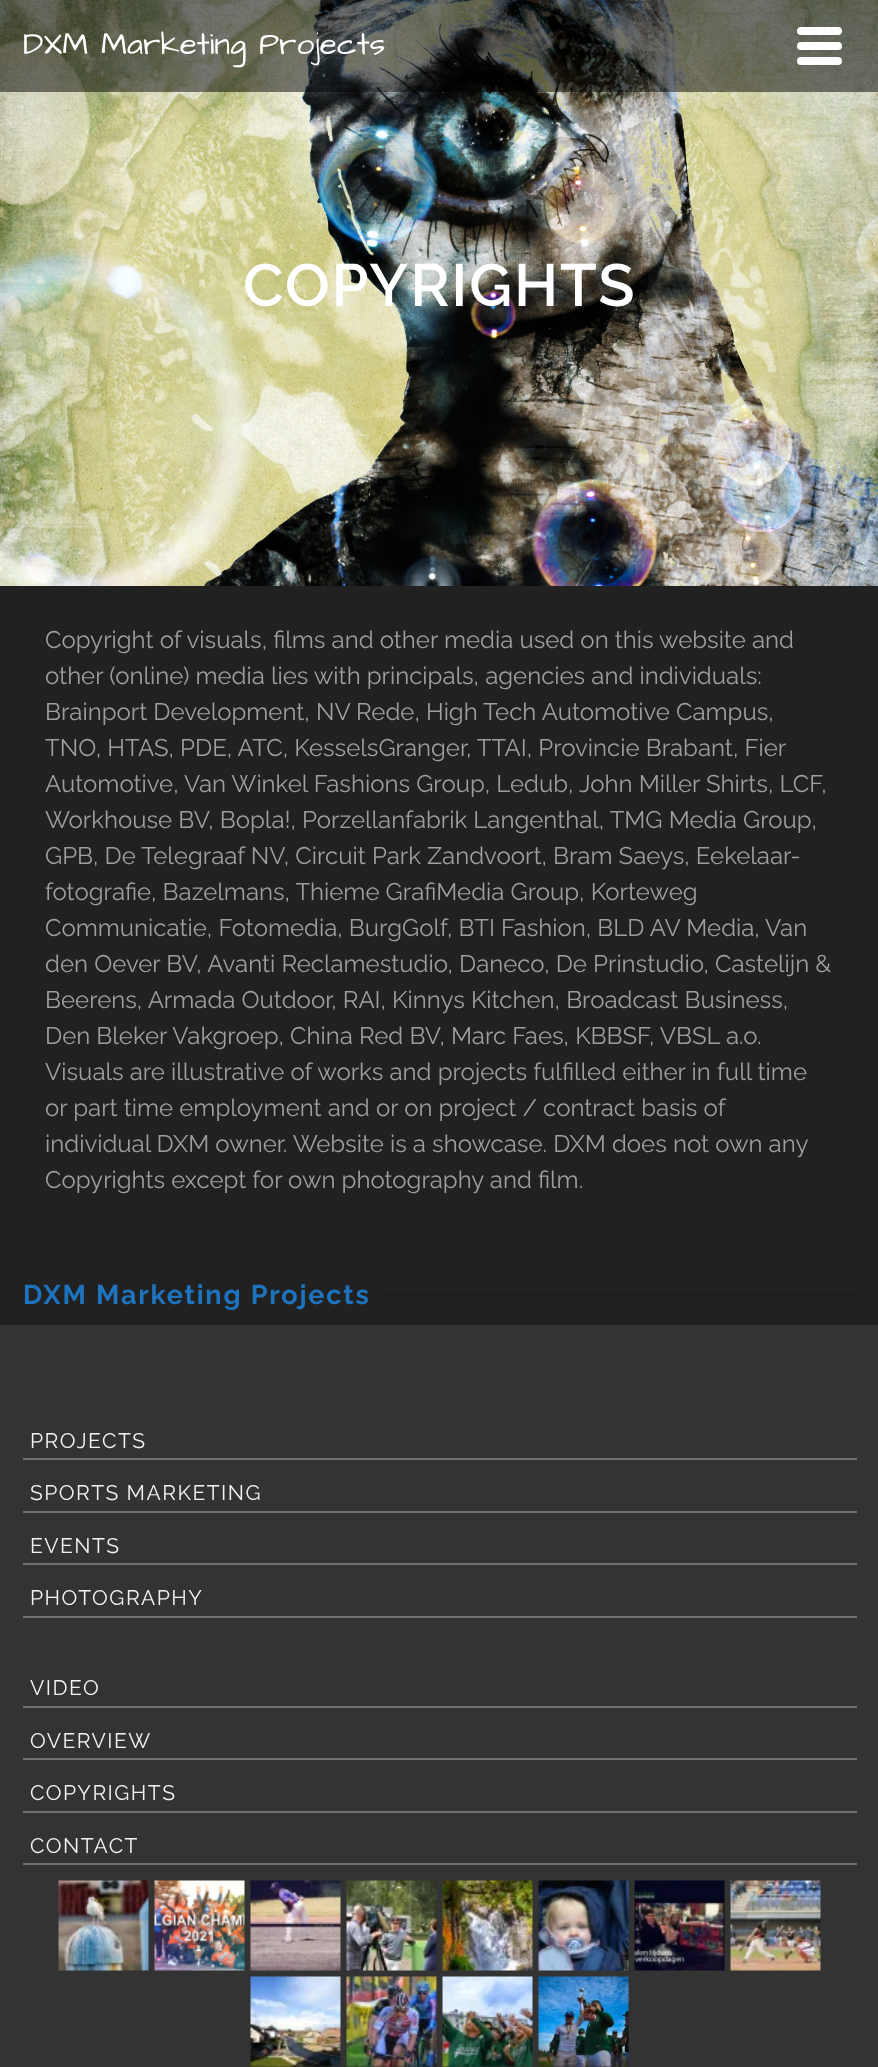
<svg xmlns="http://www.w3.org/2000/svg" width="878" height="2067">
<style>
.a{font:31.5px Architects Daughter;fill:#fff}
.b{font:600 59.5px Raleway;letter-spacing:1.8px;fill:#fff}
.c{font:24px Raleway;fill:#9e9e9e}
.d{font:bold 27px Raleway;letter-spacing:1.8px;fill:#1e73be}
.e{font:21px Raleway;letter-spacing:1.5px;fill:#f2f2f2}
</style>
<rect width="100%" height="100%" fill="#212121"/>
<image href="1.png" x="0" y="0" width="878" height="586"/>
<path fill="#00000080" d="M0 0h878v92H0z"/>
<rect fill="#fff" x="797" y="27" width="45" height="8" rx="4"/>
<rect fill="#fff" x="797" y="42" width="45" height="8" rx="4"/>
<rect fill="#fff" x="797" y="57" width="45" height="8" rx="4"/>
<path fill="#1e1e1e" d="M386 1293h471v3H386z"/>
<path fill="#333" d="M0 1325h878v742H0z"/>
<path fill="#707070" d="M23 1458h834v2H23z"/>
<path fill="#707070" d="M23 1511h834v2H23z"/>
<path fill="#707070" d="M23 1563h834v2H23z"/>
<path fill="#707070" d="M23 1616h834v2H23z"/>
<path fill="#707070" d="M23 1706h834v2H23z"/>
<path fill="#707070" d="M23 1758h834v2H23z"/>
<path fill="#707070" d="M23 1811h834v2H23z"/>
<path fill="#707070" d="M23 1863h834v2H23z"/>
<image href="2.png" x="58" y="1880" width="91" height="91"/>
<image href="3.png" x="154" y="1880" width="91" height="91"/>
<image href="4.png" x="250" y="1880" width="91" height="91"/>
<image href="5.png" x="346" y="1880" width="91" height="91"/>
<image href="6.png" x="442" y="1880" width="91" height="91"/>
<image href="7.png" x="538" y="1880" width="91" height="91"/>
<image href="8.png" x="634" y="1880" width="91" height="91"/>
<image href="9.png" x="730" y="1880" width="91" height="91"/>
<image href="10.png" x="250" y="1976" width="91" height="91"/>
<image href="11.png" x="346" y="1976" width="91" height="91"/>
<image href="12.png" x="442" y="1976" width="91" height="91"/>
<image href="13.png" x="538" y="1976" width="91" height="91"/>
<text class="a" x="23" y="54">DXM Marketing Projects</text>
<text class="b" x="243" y="306">COPYRIGHTS</text>
<text class="c" x="45" y="648">Copyright of visuals, films and other media used on this website and</text>
<text class="c" x="45" y="684">other (online) media lies with principals, agencies and individuals:</text>
<text class="c" x="45" y="720">Brainport Development, NV Rede, High Tech Automotive Campus,</text>
<text class="c" x="45" y="756">TNO, HTAS, PDE, ATC, KesselsGranger, TTAI, Provincie Brabant, Fier</text>
<text class="c" x="45" y="792">Automotive, Van Winkel Fashions Group, Ledub, John Miller Shirts, LCF,</text>
<text class="c" x="45" y="828">Workhouse BV, Bopla!, Porzellanfabrik Langenthal, TMG Media Group,</text>
<text class="c" x="45" y="864">GPB, De Telegraaf NV, Circuit Park Zandvoort, Bram Saeys, Eekelaar-</text>
<text class="c" x="45" y="900">fotografie, Bazelmans, Thieme GrafiMedia Group, Korteweg</text>
<text class="c" x="45" y="936">Communicatie, Fotomedia, BurgGolf, BTI Fashion, BLD AV Media, Van</text>
<text class="c" x="45" y="972">den Oever BV, Avanti Reclamestudio, Daneco, De Prinstudio, Castelijn &amp;</text>
<text class="c" x="45" y="1008">Beerens, Armada Outdoor, RAI, Kinnys Kitchen, Broadcast Business,</text>
<text class="c" x="45" y="1044">Den Bleker Vakgroep, China Red BV, Marc Faes, KBBSF, VBSL a.o.</text>
<text class="c" x="45" y="1080">Visuals are illustrative of works and projects fulfilled either in full time</text>
<text class="c" x="45" y="1116">or part time employment and or on project / contract basis of</text>
<text class="c" x="45" y="1152">individual DXM owner. Website is a showcase. DXM does not own any</text>
<text class="c" x="45" y="1188">Copyrights except for own photography and film.</text>
<text class="d" x="23" y="1304">DXM Marketing Projects</text>
<text class="e" x="30" y="1448">PROJECTS</text>
<text class="e" x="30" y="1500">SPORTS MARKETING</text>
<text class="e" x="30" y="1553">EVENTS</text>
<text class="e" x="30" y="1605">PHOTOGRAPHY</text>
<text class="e" x="30" y="1695">VIDEO</text>
<text class="e" x="30" y="1748">OVERVIEW</text>
<text class="e" x="30" y="1800">COPYRIGHTS</text>
<text class="e" x="30" y="1853">CONTACT</text>
</svg>
